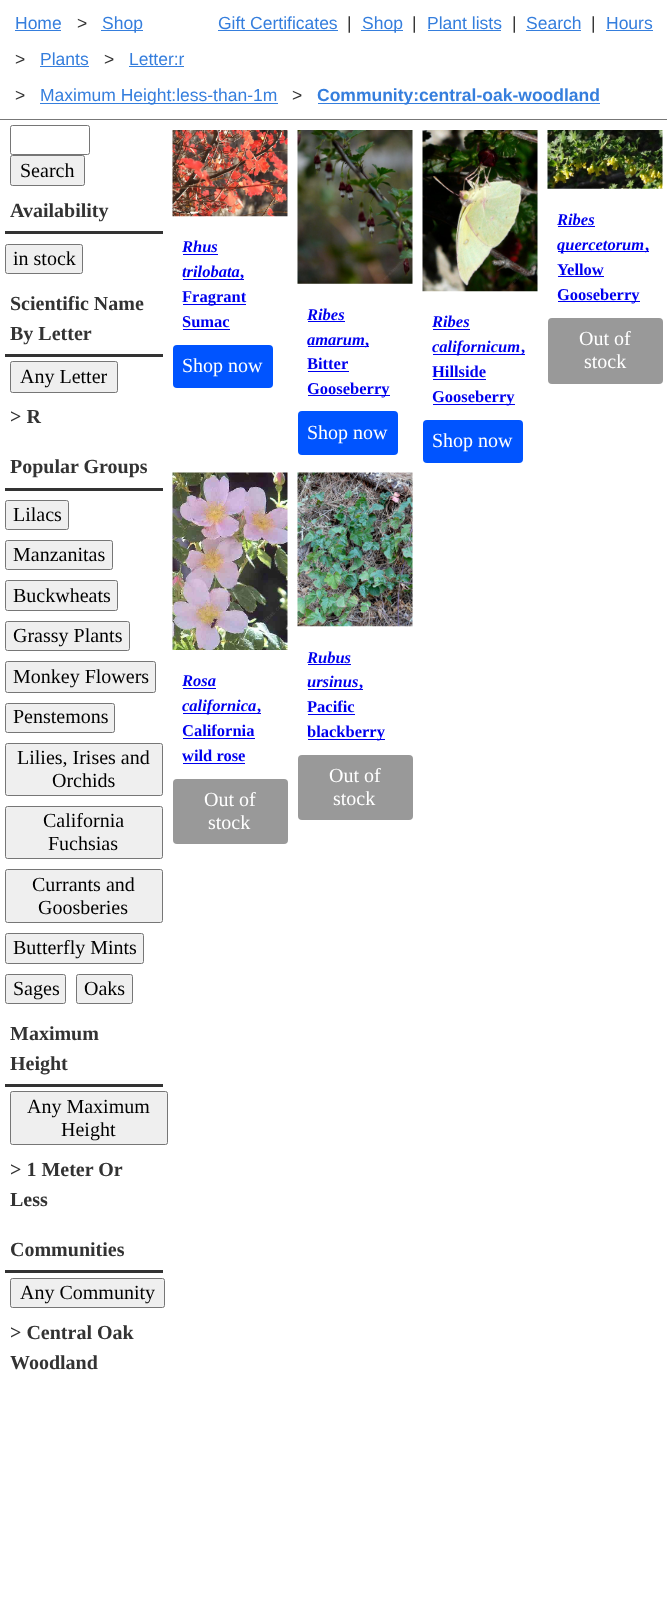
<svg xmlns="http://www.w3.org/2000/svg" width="667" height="1620">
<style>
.a{font:17.5px Liberation Sans;fill:#357edd}
.b{font:17.5px Liberation Sans;fill:#333}
.c{font:bold 17.5px Liberation Sans;fill:#357edd}
.d{font:20px Liberation Serif;fill:#000}
.e{font:bold 20px Liberation Serif;fill:#333}
.f{font:italic bold 16.5px Liberation Serif;fill:#00e}
.g{font:bold 16.5px Liberation Serif;fill:#00e}
.h{font:20px Liberation Serif;fill:#fff}
</style>
<rect width="100%" height="100%" fill="#fff"/>
<path fill="#777" d="M0 119h667v1H0z"/>
<path fill="#357edd" d="M15 30h46v1H15z"/>
<path fill="#357edd" d="M101 30h42v1H101z"/>
<path fill="#357edd" d="M40 66h49v1H40z"/>
<path fill="#357edd" d="M129 66h55v1H129z"/>
<path fill="#357edd" d="M40 103h238v1H40z"/>
<path fill="#357edd" d="M318 103h282v1H318z"/>
<path fill="#357edd" d="M218 30h120v1H218z"/>
<path fill="#357edd" d="M361 30h42v1H361z"/>
<path fill="#357edd" d="M428 30h73v1H428z"/>
<path fill="#357edd" d="M526 30h55v1H526z"/>
<path fill="#357edd" d="M606 30h47v1H606z"/>
<rect fill="none" stroke="#767676" x="10.5" y="125.5" width="79" height="29" rx="2"/>
<rect fill="#efefef" stroke="#767676" x="10.5" y="155.5" width="74" height="30" rx="2"/>
<path fill="#333" d="M5 231h158v3H5z"/>
<rect fill="#efefef" stroke="#767676" x="5.5" y="244.5" width="77" height="29" rx="2"/>
<path fill="#333" d="M5 354h158v3H5z"/>
<rect fill="#efefef" stroke="#767676" x="10.5" y="361.5" width="107" height="31" rx="2"/>
<path fill="#333" d="M5 488h158v3H5z"/>
<rect fill="#efefef" stroke="#767676" x="5.5" y="500.5" width="63" height="29" rx="2"/>
<rect fill="#efefef" stroke="#767676" x="5.5" y="540.5" width="107" height="29" rx="2"/>
<rect fill="#efefef" stroke="#767676" x="5.5" y="580.5" width="112" height="30" rx="2"/>
<rect fill="#efefef" stroke="#767676" x="5.5" y="621.5" width="124" height="29" rx="2"/>
<rect fill="#efefef" stroke="#767676" x="5.5" y="661.5" width="150" height="31" rx="2"/>
<rect fill="#efefef" stroke="#767676" x="5.5" y="703.5" width="109" height="29" rx="2"/>
<rect fill="#efefef" stroke="#767676" x="5.5" y="743.5" width="157" height="52" rx="2"/>
<rect fill="#efefef" stroke="#767676" x="5.5" y="806.5" width="157" height="52" rx="2"/>
<rect fill="#efefef" stroke="#767676" x="5.5" y="869.5" width="157" height="53" rx="2"/>
<rect fill="#efefef" stroke="#767676" x="5.5" y="933.5" width="138" height="30" rx="2"/>
<rect fill="#efefef" stroke="#767676" x="5.5" y="974.5" width="60" height="29" rx="2"/>
<rect fill="#efefef" stroke="#767676" x="76.5" y="974.5" width="56" height="29" rx="2"/>
<path fill="#333" d="M5 1084h158v3H5z"/>
<rect fill="#efefef" stroke="#767676" x="10.5" y="1091.5" width="157" height="53" rx="2"/>
<path fill="#333" d="M5 1270h158v3H5z"/>
<rect fill="#efefef" stroke="#767676" x="10.5" y="1278.5" width="154" height="29" rx="2"/>
<image href="1.png" x="172" y="130" width="116" height="87"/>
<path fill="#00e" d="M183 254h35v1H183z"/>
<path fill="#00e" d="M183 279h61v1H183z"/>
<path fill="#00e" d="M183 304h63v1H183z"/>
<path fill="#00e" d="M183 329h47v1H183z"/>
<rect fill="#0054ff" x="173" y="345" width="100" height="43" rx="4"/>
<image href="2.png" x="297" y="130" width="116" height="154"/>
<path fill="#00e" d="M308 321h37v1H308z"/>
<path fill="#00e" d="M308 346h61v1H308z"/>
<path fill="#00e" d="M308 371h41v1H308z"/>
<path fill="#00e" d="M308 395h82v1H308z"/>
<rect fill="#0054ff" x="298" y="411" width="100" height="44" rx="4"/>
<image href="3.png" x="422" y="130" width="116" height="162"/>
<path fill="#00e" d="M433 329h37v1H433z"/>
<path fill="#00e" d="M433 354h92v1H433z"/>
<path fill="#00e" d="M433 379h53v1H433z"/>
<path fill="#00e" d="M433 404h82v1H433z"/>
<rect fill="#0054ff" x="423" y="420" width="100" height="43" rx="4"/>
<image href="4.png" x="547" y="130" width="116" height="59"/>
<path fill="#00e" d="M558 226h37v1H558z"/>
<path fill="#00e" d="M558 251h91v1H558z"/>
<path fill="#00e" d="M558 276h46v1H558z"/>
<path fill="#00e" d="M558 301h82v1H558z"/>
<rect fill="#999" x="548" y="318" width="115" height="66" rx="4"/>
<image href="5.png" x="172" y="472" width="116" height="178"/>
<path fill="#00e" d="M183 688h33v1H183z"/>
<path fill="#00e" d="M183 713h73v1H183z"/>
<path fill="#00e" d="M256 713h5v1H256z"/>
<path fill="#00e" d="M183 738h72v1H183z"/>
<path fill="#00e" d="M183 763h62v1H183z"/>
<rect fill="#999" x="173" y="779" width="115" height="65" rx="4"/>
<image href="6.png" x="297" y="472" width="116" height="155"/>
<path fill="#00e" d="M308 664h43v1H308z"/>
<path fill="#00e" d="M308 689h55v1H308z"/>
<path fill="#00e" d="M308 714h47v1H308z"/>
<path fill="#00e" d="M308 739h77v1H308z"/>
<rect fill="#999" x="298" y="755" width="115" height="65" rx="4"/>
<text class="a" x="15" y="29">Home</text>
<text class="b" x="77" y="29">&gt;</text>
<text class="a" x="102" y="29">Shop</text>
<text class="b" x="15" y="65">&gt;</text>
<text class="a" x="40" y="65">Plants</text>
<text class="b" x="104" y="65">&gt;</text>
<text class="a" x="129" y="65">Letter:r</text>
<text class="b" x="15" y="101">&gt;</text>
<text class="a" x="40" y="101">Maximum Height:less-than-1m</text>
<text class="b" x="292" y="101">&gt;</text>
<text class="c" x="317" y="101">Community:central-oak-woodland</text>
<text class="a" x="218" y="29">Gift Certificates</text>
<text class="b" x="347" y="29">|</text>
<text class="a" x="362" y="29">Shop</text>
<text class="b" x="412" y="29">|</text>
<text class="a" x="427" y="29">Plant lists</text>
<text class="b" x="512" y="29">|</text>
<text class="a" x="526" y="29">Search</text>
<text class="b" x="591" y="29">|</text>
<text class="a" x="606" y="29">Hours</text>
<text class="d" x="20" y="177">Search</text>
<text class="e" x="10" y="217">Availability</text>
<text class="d" x="13" y="265">in stock</text>
<text class="e" x="10" y="310">Scientific Name</text>
<text class="e" x="10" y="340">By Letter</text>
<text class="d" x="20" y="383">Any Letter</text>
<text class="e" x="10" y="423">&gt; R</text>
<text class="e" x="10" y="473">Popular Groups</text>
<text class="d" x="13" y="521">Lilacs</text>
<text class="d" x="13" y="561">Manzanitas</text>
<text class="d" x="13" y="602">Buckwheats</text>
<text class="d" x="13" y="642">Grassy Plants</text>
<text class="d" x="13" y="683">Monkey Flowers</text>
<text class="d" x="13" y="723">Penstemons</text>
<text class="d" x="17" y="764">Lilies, Irises and</text>
<text class="d" x="52" y="787">Orchids</text>
<text class="d" x="43" y="827">California</text>
<text class="d" x="48" y="850">Fuchsias</text>
<text class="d" x="32" y="891">Currants and</text>
<text class="d" x="38" y="914">Goosberies</text>
<text class="d" x="13" y="954">Butterfly Mints</text>
<text class="d" x="13" y="995">Sages</text>
<text class="d" x="84" y="995">Oaks</text>
<text class="e" x="10" y="1040">Maximum</text>
<text class="e" x="10" y="1070">Height</text>
<text class="d" x="27" y="1113">Any Maximum</text>
<text class="d" x="61" y="1136">Height</text>
<text class="e" x="10" y="1176">&gt; 1 Meter Or</text>
<text class="e" x="10" y="1206">Less</text>
<text class="e" x="10" y="1256">Communities</text>
<text class="d" x="20" y="1299">Any Community</text>
<text class="e" x="10" y="1339">&gt; Central Oak</text>
<text class="e" x="10" y="1369">Woodland</text>
<text class="f" x="182" y="252">Rhus</text>
<text class="f" x="182" y="277">trilobata</text>
<text class="g" x="240" y="277">,</text>
<text class="g" x="182" y="302">Fragrant</text>
<text class="g" x="182" y="327">Sumac</text>
<text class="h" x="182" y="372">Shop now</text>
<text class="f" x="307" y="320">Ribes</text>
<text class="f" x="307" y="345">amarum</text>
<text class="g" x="365" y="345">,</text>
<text class="g" x="307" y="369">Bitter</text>
<text class="g" x="307" y="394">Gooseberry</text>
<text class="h" x="307" y="439">Shop now</text>
<text class="f" x="432" y="327">Ribes</text>
<text class="f" x="432" y="352">californicum</text>
<text class="g" x="521" y="352">,</text>
<text class="g" x="432" y="377">Hillside</text>
<text class="g" x="432" y="402">Gooseberry</text>
<text class="h" x="432" y="447">Shop now</text>
<text class="f" x="557" y="225">Ribes</text>
<text class="f" x="557" y="250">quercetorum</text>
<text class="g" x="645" y="250">,</text>
<text class="g" x="557" y="275">Yellow</text>
<text class="g" x="557" y="300">Gooseberry</text>
<text class="h" x="579" y="345">Out of</text>
<text class="h" x="584" y="368">stock</text>
<text class="f" x="182" y="686">Rosa</text>
<text class="f" x="182" y="711">californica</text>
<text class="g" x="257" y="711">,</text>
<text class="g" x="182" y="736">California</text>
<text class="g" x="182" y="761">wild rose</text>
<text class="h" x="204" y="806">Out of</text>
<text class="h" x="208" y="829">stock</text>
<text class="f" x="307" y="663">Rubus</text>
<text class="f" x="307" y="687">ursinus</text>
<text class="g" x="359" y="687">,</text>
<text class="g" x="307" y="712">Pacific</text>
<text class="g" x="307" y="737">blackberry</text>
<text class="h" x="329" y="782">Out of</text>
<text class="h" x="333" y="805">stock</text>
</svg>
